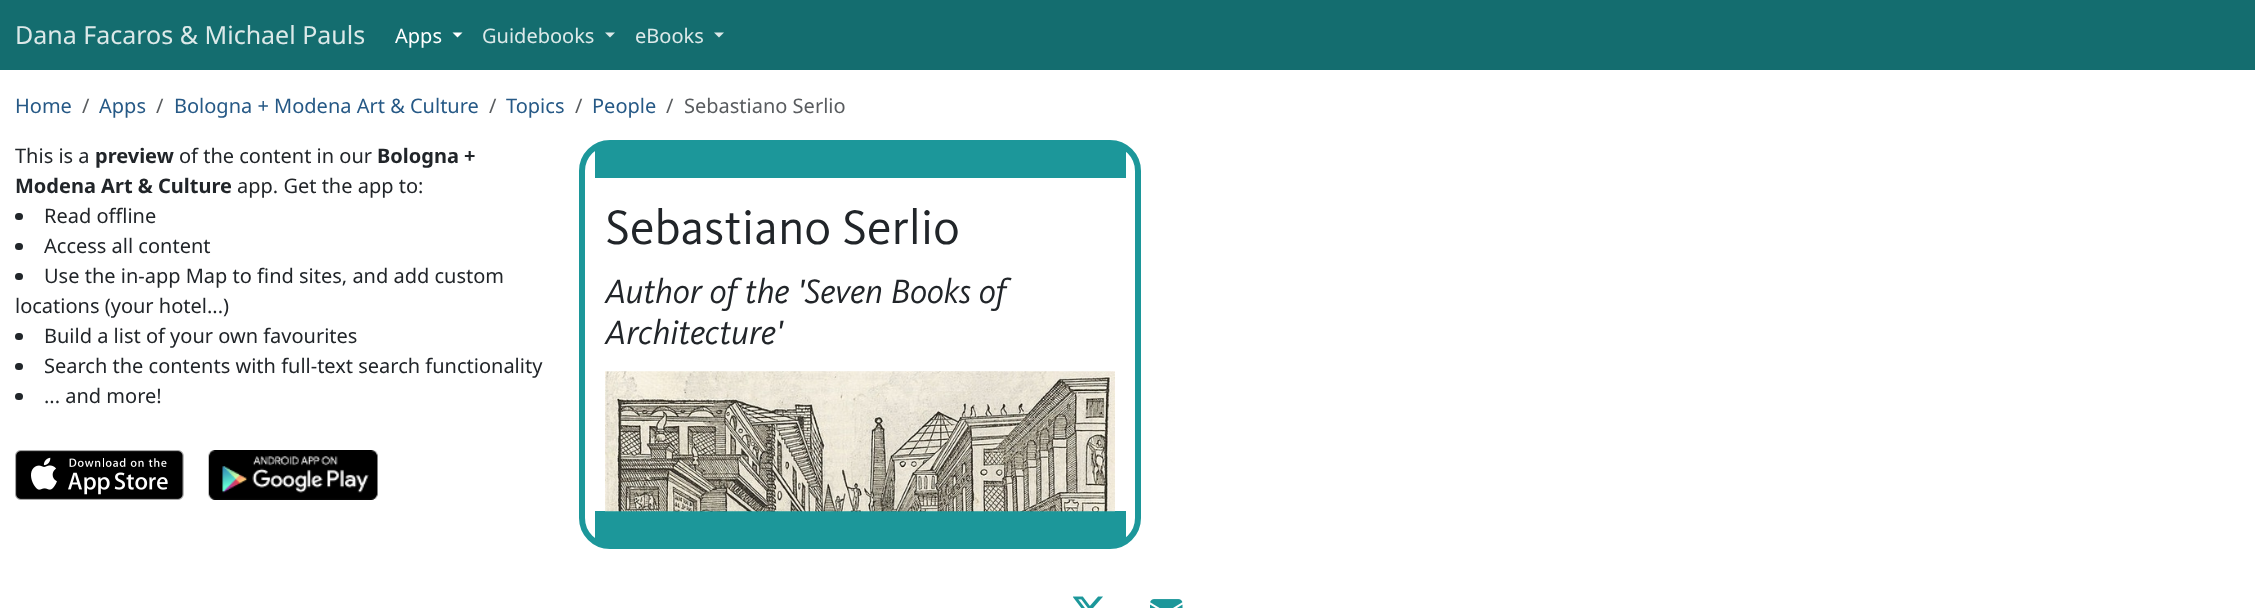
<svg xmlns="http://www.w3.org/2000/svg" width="2255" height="608">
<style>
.a{font:25px Noto Sans;fill:#dce9e9}
.b{font:20px Noto Sans;fill:#fff}
.c{font:20px Noto Sans;fill:#dce9e9}
.d{font:20px Noto Sans;fill:#265986}
.e{font:20px Noto Sans;fill:#595c5f}
.f{font:20px Noto Sans;fill:#212529}
.g{font:bold 20px Noto Sans;fill:#212529}
.h{font:50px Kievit;fill:#212529}
.i{font:italic 35px Kievit;fill:#212529}
</style>
<rect width="100%" height="100%" fill="#fff"/>
<path fill="#146d6f" d="M0 0h2255v70H0z"/>
<path fill="#fff" d="M452.5 32.5h10l-5 5z"/>
<path fill="#dce9e9" d="M605 32.5h10l-5 5z"/>
<path fill="#dce9e9" d="M714 32.5h10l-5 5z"/>
<rect fill="#212529" x="15" y="213" width="8" height="7" rx="3.5"/>
<rect fill="#212529" x="15" y="243" width="8" height="7" rx="3.5"/>
<rect fill="#212529" x="15" y="273" width="8" height="7" rx="3.5"/>
<rect fill="#212529" x="15" y="333" width="8" height="7" rx="3.5"/>
<rect fill="#212529" x="15" y="363" width="8" height="7" rx="3.5"/>
<rect fill="#212529" x="15" y="393" width="8" height="7" rx="3.5"/>
<image href="1.png" x="15" y="450" width="169" height="50"/>
<image href="2.png" x="208" y="450" width="170" height="50"/>
<rect fill="none" stroke="#1c979a" stroke-width="6" x="582" y="143" width="556" height="403" rx="28"/>
<path fill="#1c979a" d="M595 146h531v32H595z"/>
<path fill="#1c979a" d="M595 511h531v32H595z"/>
<image href="3.png" x="605" y="371" width="510" height="141"/>
<image href="4.png" x="1073" y="596" width="30" height="12"/>
<image href="5.png" x="1150" y="599" width="33" height="9"/>
<text class="a" x="15" y="44">Dana Facaros &amp; Michael Pauls</text>
<text class="b" x="395" y="43">Apps</text>
<text class="c" x="482" y="43">Guidebooks</text>
<text class="c" x="635" y="43">eBooks</text>
<text class="d" x="15" y="113">Home</text>
<text class="e" x="82" y="113">/</text>
<text class="d" x="99" y="113">Apps</text>
<text class="e" x="156" y="113">/</text>
<text class="d" x="174" y="113">Bologna + Modena Art &amp; Culture</text>
<text class="e" x="489" y="113">/</text>
<text class="d" x="506" y="113">Topics</text>
<text class="e" x="575" y="113">/</text>
<text class="d" x="592" y="113">People</text>
<text class="e" x="666" y="113">/</text>
<text class="e" x="684" y="113">Sebastiano Serlio</text>
<text class="f" x="15" y="163">This is a</text>
<text class="g" x="95" y="163">preview</text>
<text class="f" x="179" y="163">of the content in our</text>
<text class="g" x="377" y="163">Bologna +</text>
<text class="g" x="15" y="193">Modena Art &amp; Culture</text>
<text class="f" x="237" y="193">app. Get the app to:</text>
<text class="f" x="44" y="223">Read offline</text>
<text class="f" x="44" y="253">Access all content</text>
<text class="f" x="44" y="283">Use the in-app Map to find sites, and add custom</text>
<text class="f" x="15" y="313">locations (your hotel...)</text>
<text class="f" x="44" y="343">Build a list of your own favourites</text>
<text class="f" x="44" y="373">Search the contents with full-text search functionality</text>
<text class="f" x="44" y="403">... and more!</text>
<text class="h" x="605" y="244">Sebastiano Serlio</text>
<text class="i" x="605" y="303">Author of the 'Seven Books of</text>
<text class="i" x="605" y="344">Architecture'</text>
</svg>
